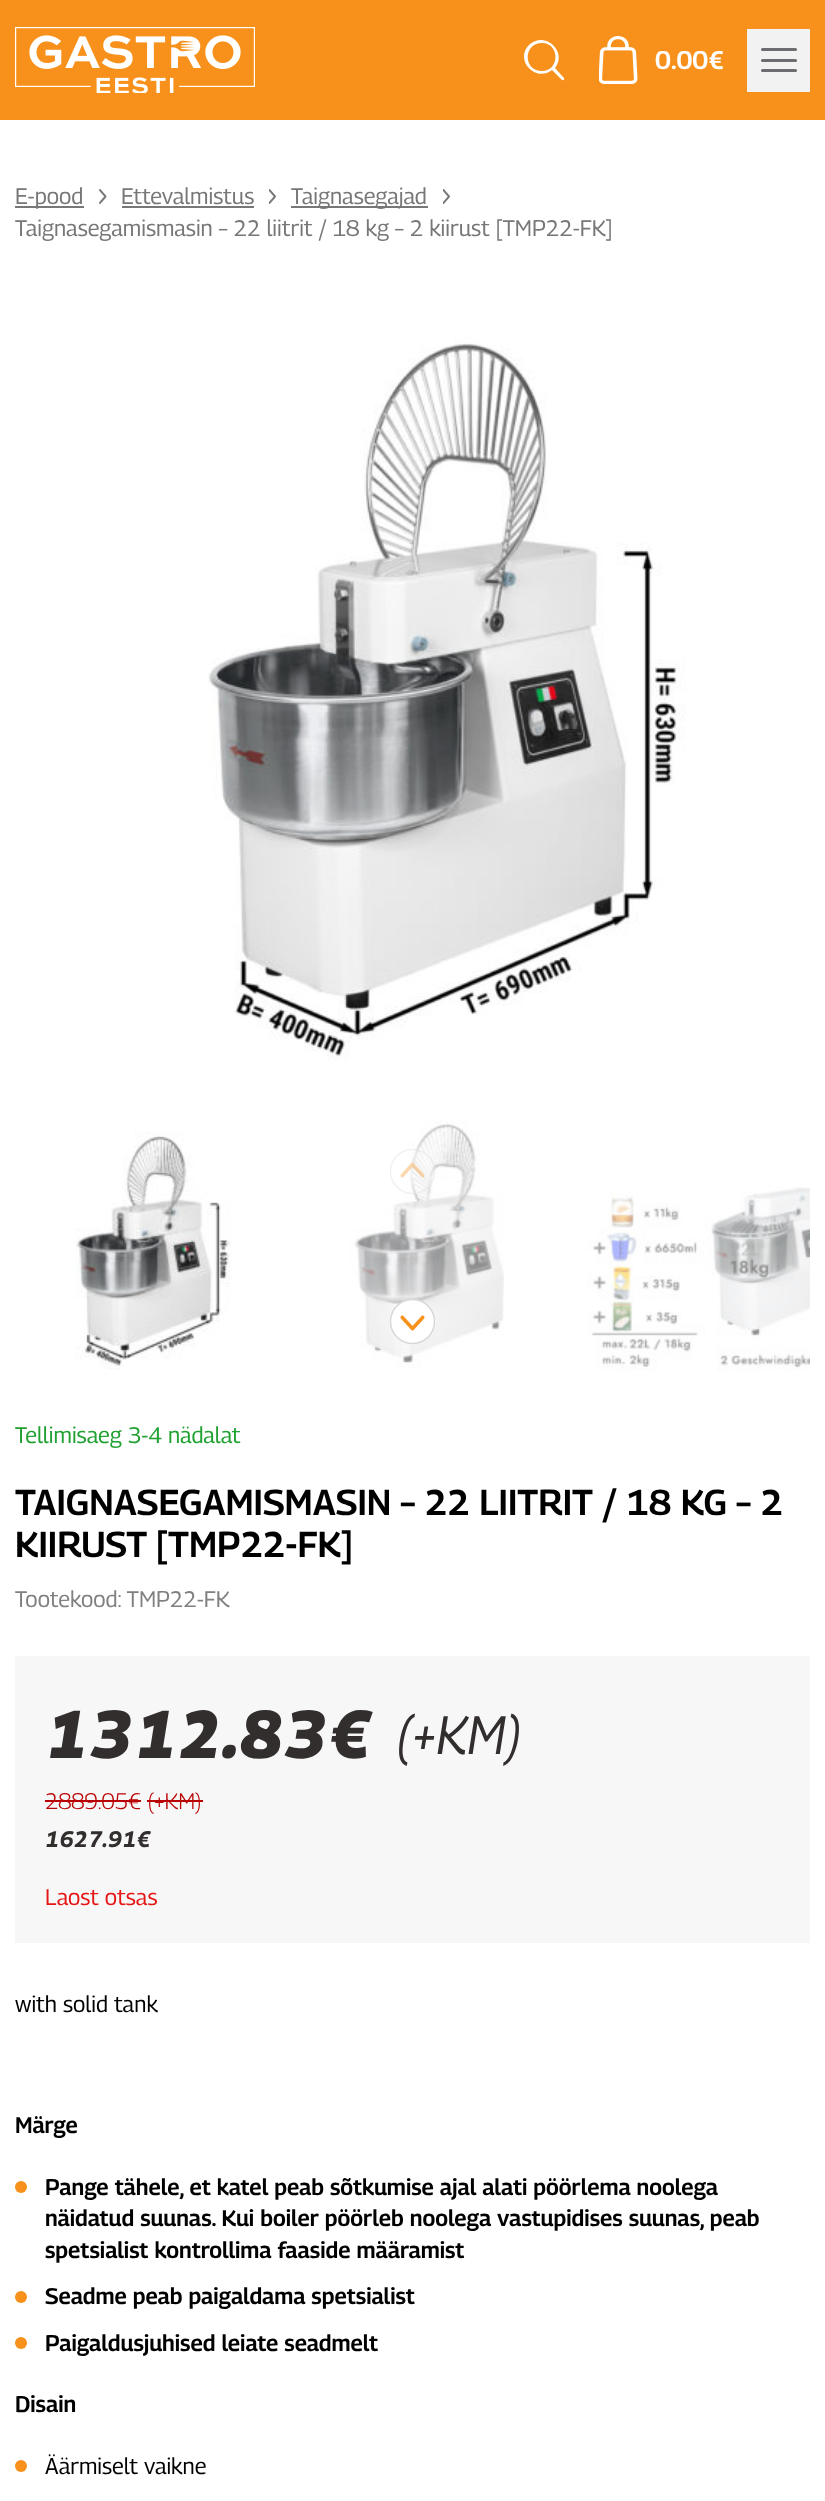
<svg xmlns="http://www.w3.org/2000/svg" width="825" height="2501">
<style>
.a{font:600 25.5px Georama;fill:#fff}
.b{font:22.5px Georama;fill:#777}
.c{font:22.5px Georama;fill:#20a131}
.d{font:600 36px Georama;fill:#000}
.e{font:22.5px Georama;fill:#808080}
.f{font:italic 800 67.5px Georama;fill:#332e2e}
.g{font:italic 54px Georama;fill:#332e2e}
.h{font:300 22.5px Georama;fill:#b90202}
.i{font:italic bold 22.5px Georama;fill:#332e2e}
.j{font:22.5px Georama;fill:#e61616}
.k{font:22.5px Georama;fill:#000}
.l{font:600 22.5px Georama;fill:#000}
</style>
<rect width="100%" height="100%" fill="#fff"/>
<path fill="#f8911b" d="M0 0h825v120H0z"/>
<image href="1.png" x="15" y="27" width="240" height="66"/>
<path fill="#fff" d="M552 70c-16 13-38-10-23-25c16-15 39 7 26 23l9 10c1 1-1 3-2 2zm-10-27c-19 0-19 28 0 28c18 0 18-28 0-28z"/>
<image href="2.png" x="599" y="36" width="39" height="48"/>
<path fill="#f2f2f2" d="M747 29h63v63H747z"/>
<rect fill="#6b6d70" x="761" y="48" width="36" height="3" rx="1.5"/>
<rect fill="#6b6d70" x="761" y="59" width="36" height="3" rx="1.5"/>
<rect fill="#6b6d70" x="761" y="69" width="36" height="3" rx="1.5"/>
<path fill="#777" d="M15 206h69v2H15z"/>
<image href="3.png" x="99" y="189" width="8" height="15"/>
<path fill="#777" d="M122 206h132v2H122z"/>
<image href="4.png" x="269" y="189" width="7" height="15"/>
<path fill="#777" d="M291 206h137v2H291z"/>
<image href="4.png" x="443" y="189" width="7" height="15"/>
<image href="5.png" x="208" y="336" width="478" height="725"/>
<image href="6.png" x="75" y="1131" width="156" height="239"/>
<image href="7.png" x="350" y="1119" width="154" height="249"/>
<image href="8.png" x="587" y="1187" width="223" height="184"/>
<image href="9.png" x="390" y="1149" width="45" height="45"/>
<image href="10.png" x="390" y="1299" width="45" height="45"/>
<path fill="#f7f7f7" d="M15 1656h795v287H15z"/>
<path fill="#b90202" d="M45 1800h96v2H45z"/>
<path fill="#b90202" d="M147 1800h56v2H147z"/>
<circle fill="#f8911b" cx="21" cy="2187" r="6"/>
<circle fill="#f8911b" cx="21" cy="2297" r="6"/>
<circle fill="#f8911b" cx="21" cy="2343" r="6"/>
<circle fill="#f8911b" cx="21" cy="2466" r="6"/>
<text class="a" x="655" y="69">0.00€</text>
<text class="b" x="15" y="204">E-pood</text>
<text class="b" x="121" y="204">Ettevalmistus</text>
<text class="b" x="291" y="204">Taignasegajad</text>
<text class="b" x="15" y="236">Taignasegamismasin – 22 liitrit / 18 kg – 2 kiirust [TMP22-FK]</text>
<text class="c" x="15" y="1443">Tellimisaeg 3-4 nädalat</text>
<text class="d" x="15" y="1515">TAIGNASEGAMISMASIN – 22 LIITRIT / 18 KG – 2</text>
<text class="d" x="15" y="1557">KIIRUST [TMP22-FK]</text>
<text class="e" x="15" y="1607">Tootekood: TMP22-FK</text>
<text class="f" x="45" y="1758">1312.83€</text>
<text class="g" x="396" y="1754">(+KM)</text>
<text class="h" x="45" y="1809">2889.05€ (+KM)</text>
<text class="i" x="45" y="1847">1627.91€</text>
<text class="j" x="45" y="1905">Laost otsas</text>
<text class="k" x="15" y="2012">with solid tank</text>
<text class="l" x="15" y="2133">Märge</text>
<text class="l" x="45" y="2195">Pange tähele, et katel peab sõtkumise ajal alati pöörlema noolega</text>
<text class="l" x="45" y="2226">näidatud suunas. Kui boiler pöörleb noolega vastupidises suunas, peab</text>
<text class="l" x="45" y="2258">spetsialist kontrollima faaside määramist</text>
<text class="l" x="45" y="2304">Seadme peab paigaldama spetsialist</text>
<text class="l" x="45" y="2351">Paigaldusjuhised leiate seadmelt</text>
<text class="l" x="15" y="2412">Disain</text>
<text class="k" x="45" y="2474">Äärmiselt vaikne</text>
</svg>
